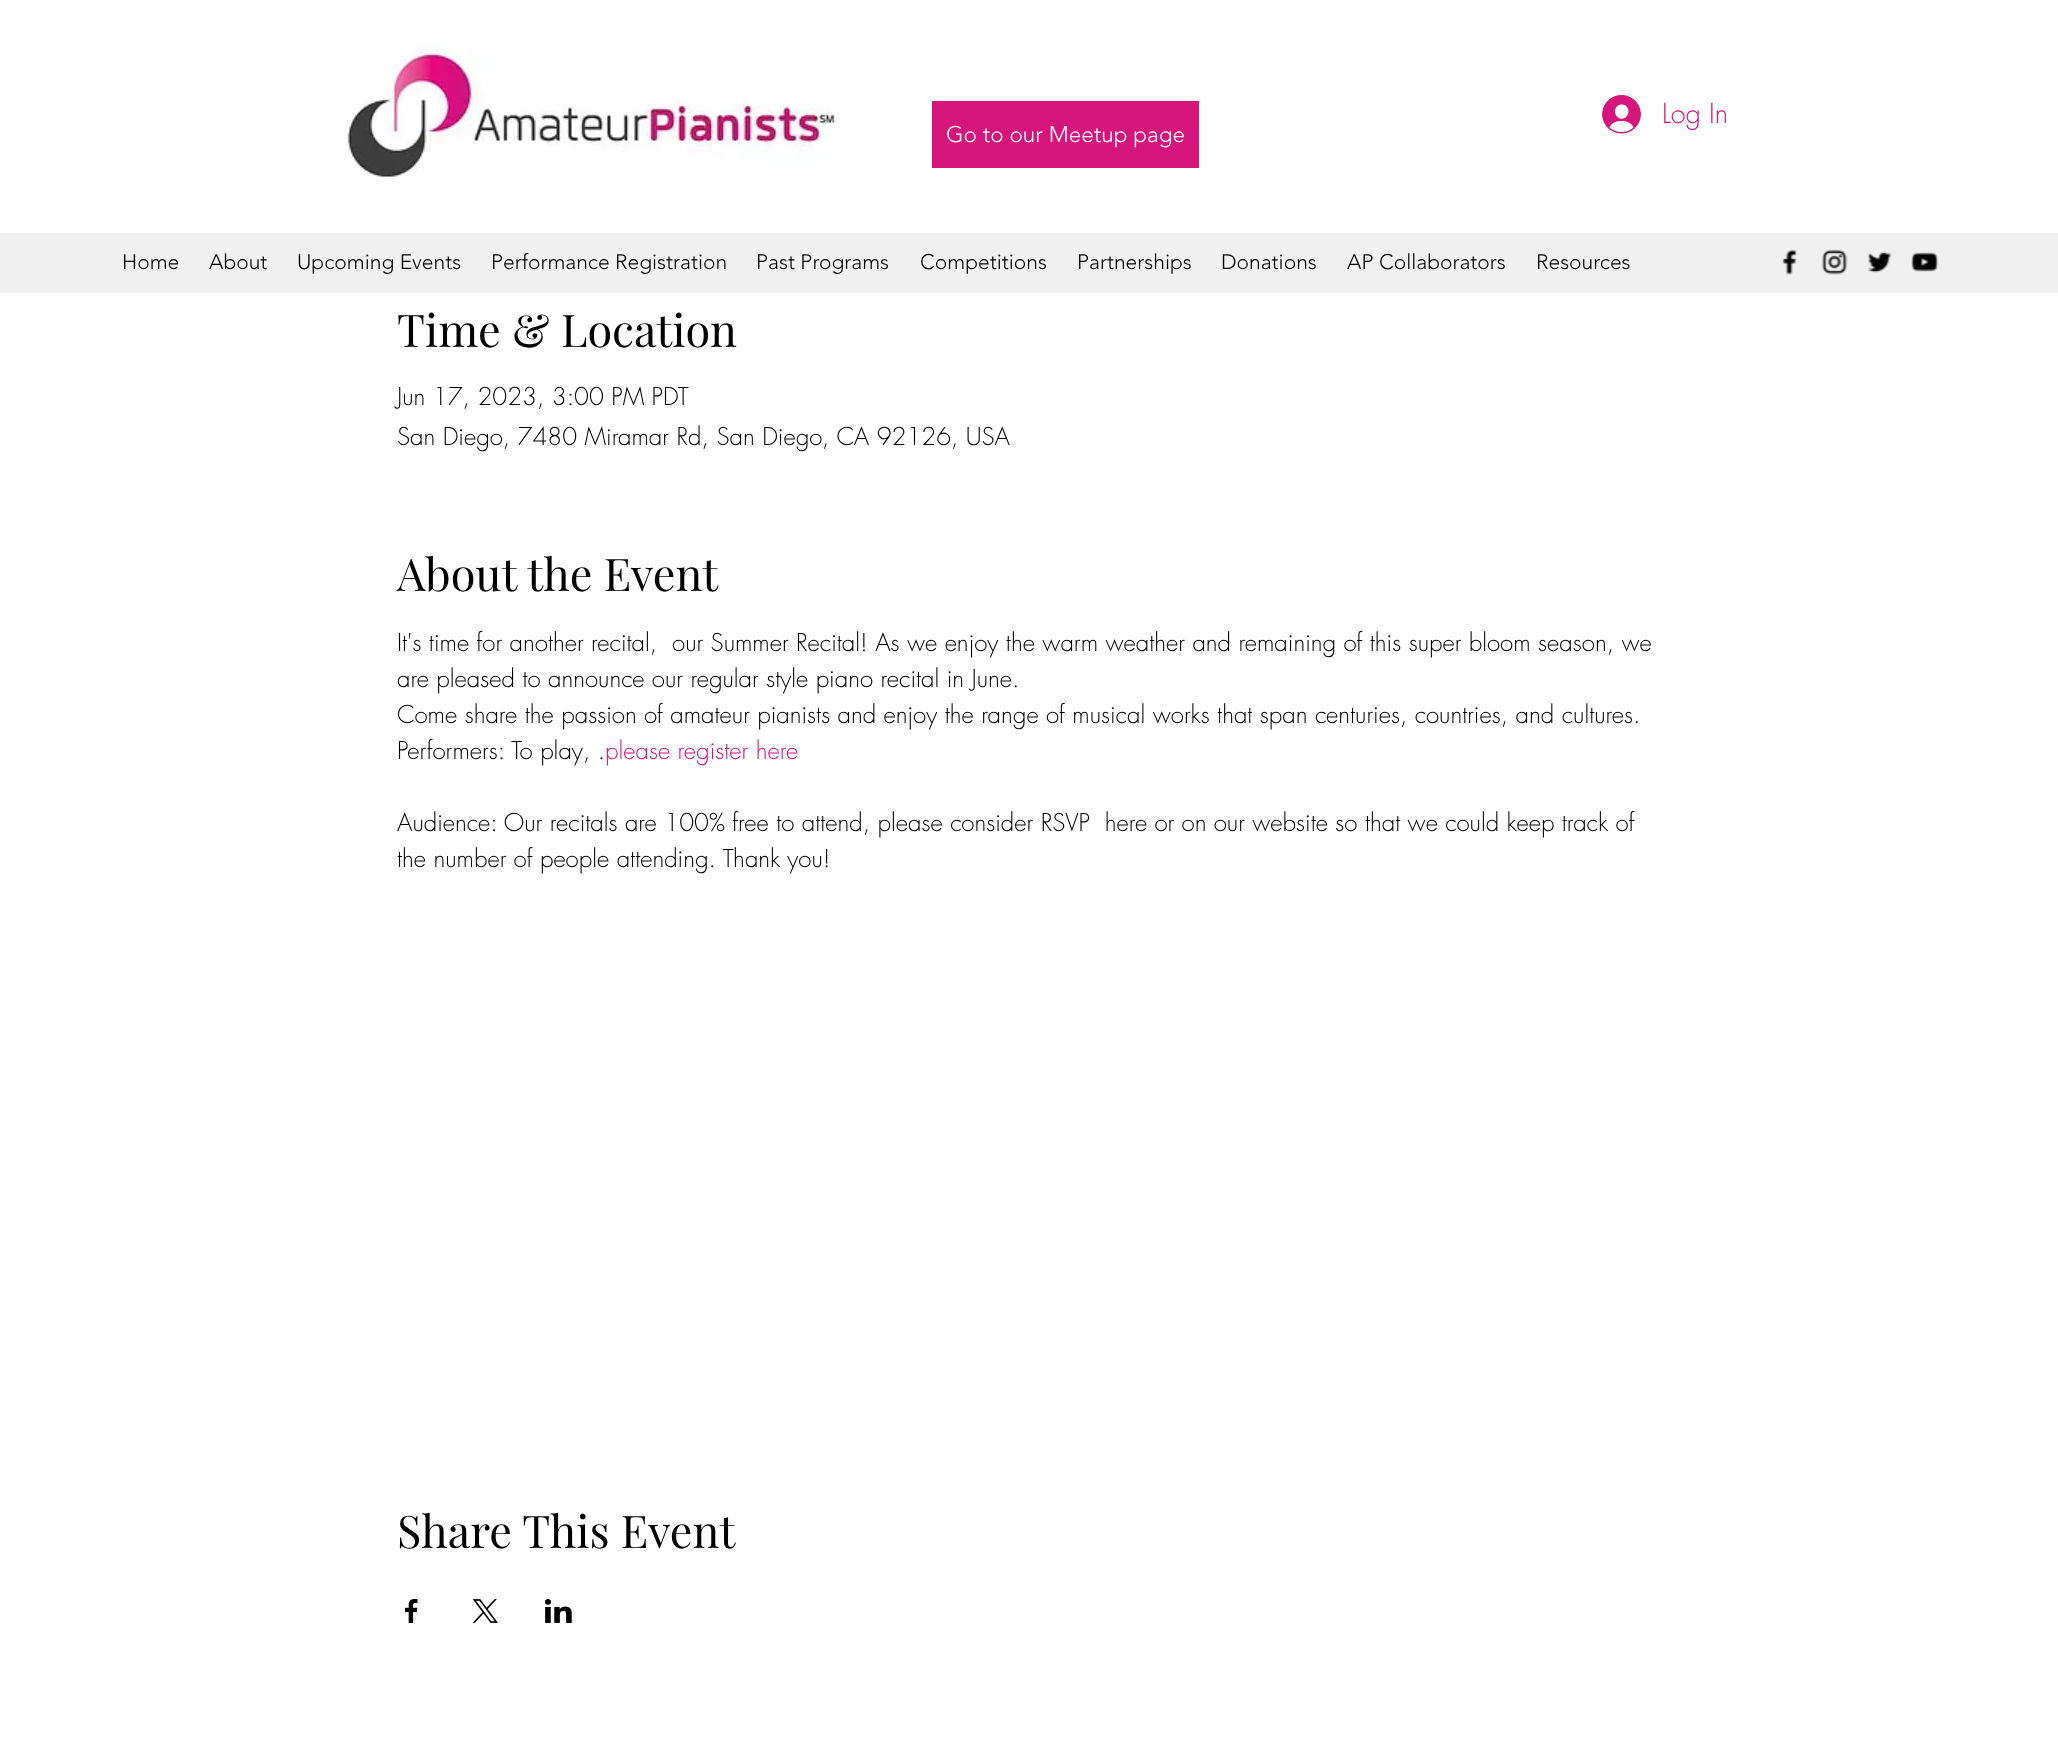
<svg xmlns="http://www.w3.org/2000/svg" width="2058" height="1751">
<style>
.a{font:300 27px futura;fill:#d5147c}
.b{font:300 22.5px 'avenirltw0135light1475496';fill:#fff}
.c{font:300 21px 'avenirltw0135light1475496';fill:#000}
.d{font:45px Playfair Display;fill:#000}
.e{font:300 24px futura;fill:#000}
.f{font:300 24px futura;fill:#d5147c}
</style>
<rect width="100%" height="100%" fill="#fff"/>
<image href="1.png" x="347" y="44" width="491" height="134"/>
<image href="2.png" x="1602" y="95" width="39" height="39"/>
<path fill="#d5147c" d="M932 101h267v67H932z"/>
<path fill="#f0f0f0" d="M0 233h2058v60H0z"/>
<image href="3.png" x="1782" y="249" width="15" height="26"/>
<image href="4.png" x="1821" y="249" width="27" height="26"/>
<image href="5.png" x="1868" y="251" width="24" height="22"/>
<image href="6.png" x="1911" y="252" width="28" height="20"/>
<image href="7.png" x="405" y="1599" width="13" height="24"/>
<image href="8.png" x="472" y="1599" width="26" height="24"/>
<image href="9.png" x="545" y="1599" width="27" height="24"/>
<text class="a" x="1662" y="123">Log In</text>
<text class="b" x="946" y="142">Go to our Meetup page</text>
<text class="c" x="122" y="269">Home</text>
<text class="c" x="209" y="269">About</text>
<text class="c" x="297" y="269">Upcoming Events</text>
<text class="c" x="491" y="269">Performance Registration</text>
<text class="c" x="756" y="269">Past Programs</text>
<text class="c" x="920" y="269">Competitions</text>
<text class="c" x="1077" y="269">Partnerships</text>
<text class="c" x="1221" y="269">Donations</text>
<text class="c" x="1347" y="269">AP Collaborators</text>
<text class="c" x="1536" y="269">Resources</text>
<text class="d" x="397" y="347">Time &amp; Location</text>
<text class="e" x="397" y="405">Jun 17, 2023, 3:00 PM PDT</text>
<text class="e" x="397" y="445">San Diego, 7480 Miramar Rd, San Diego, CA 92126, USA</text>
<text class="d" x="397" y="591">About the Event</text>
<text class="e" xml:space="preserve" x="397" y="651">It's time for another recital,  our Summer Recital! As we enjoy the warm weather and remaining of this super bloom season, we</text>
<text class="e" x="397" y="687">are pleased to announce our regular style piano recital in June.</text>
<text class="e" x="397" y="723">Come share the passion of amateur pianists and enjoy the range of musical works that span centuries, countries, and cultures.</text>
<text class="e" x="397" y="759">Performers: To play, .</text>
<text class="f" x="605" y="759">please register here</text>
<text class="e" xml:space="preserve" x="397" y="831">Audience: Our recitals are 100% free to attend, please consider RSVP  here or on our website so that we could keep track of</text>
<text class="e" x="397" y="867">the number of people attending. Thank you!</text>
<text class="d" x="397" y="1548">Share This Event</text>
</svg>
